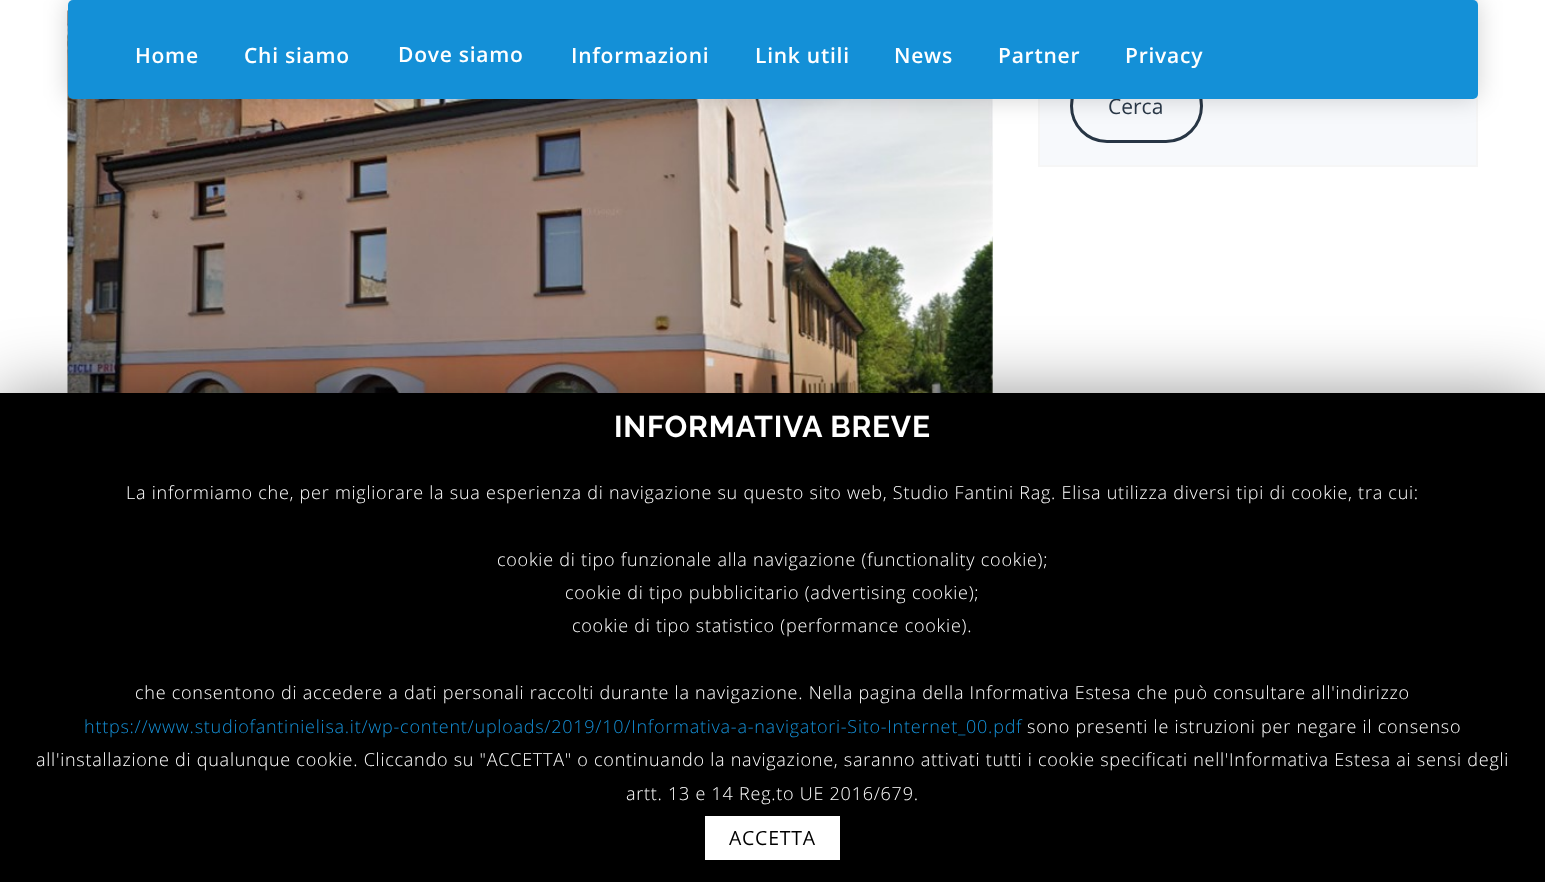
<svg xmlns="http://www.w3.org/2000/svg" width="1545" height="882">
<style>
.a{font:21px Open Sans;fill:#283645}
.b{font:600 21px Open Sans;letter-spacing:0.75px;fill:#fff}
.c{font:bold 30px Raleway;letter-spacing:0.75px;fill:#fff}
.d{font:300 18px Open Sans;letter-spacing:0.75px;fill:#fff}
.e{font:300 18px Open Sans;letter-spacing:0.75px;fill:#1490d7}
.f{font:19.5px Open Sans;letter-spacing:0.75px;fill:#000}
</style>
<rect width="100%" height="100%" fill="#fff"/>
<image href="1.png" x="67" y="10" width="926" height="383"/>
<path fill="#f7f9fc" stroke="#f6f6f6" stroke-width="2" d="M1039 -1h438v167H1039z"/>
<rect fill="none" stroke="#283645" stroke-width="3" x="1071.5" y="70.5" width="130" height="71" rx="35.5"/>
<rect fill="#0000002e" filter="blur(12px)" x="68" width="1410" height="99" rx="5"/>
<path fill="#00000080" filter="blur(37.5px)" d="M0 401h1545v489H0z"/>
<path fill="#000" d="M0 393h1545v489H0z"/>
<path fill="#fff" d="M705 816h135v44H705z"/>
<text class="a" x="1108" y="114">Cerca</text>
<rect fill="#1490d7" x="68" width="1410" height="99" rx="5"/>
<text class="b" x="1125" y="63">Privacy</text>
<text class="b" x="998" y="63">Partner</text>
<text class="b" x="894" y="63">News</text>
<text class="b" x="755" y="63">Link utili</text>
<text class="b" x="571" y="63">Informazioni</text>
<text class="b" x="398" y="62">Dove siamo</text>
<text class="b" x="244" y="63">Chi siamo</text>
<text class="b" x="135" y="63">Home</text>
<text class="c" x="614" y="437">INFORMATIVA BREVE</text>
<text class="d" x="126" y="499">La informiamo che, per migliorare la sua esperienza di navigazione su questo sito web, Studio Fantini Rag. Elisa utilizza diversi tipi di cookie, tra cui:</text>
<text class="d" x="497" y="566">cookie di tipo funzionale alla navigazione (functionality cookie);</text>
<text class="d" x="565" y="599">cookie di tipo pubblicitario (advertising cookie);</text>
<text class="d" x="572" y="632">cookie di tipo statistico (performance cookie).</text>
<text class="d" x="135" y="699">che consentono di accedere a dati personali raccolti durante la navigazione. Nella pagina della Informativa Estesa che può consultare all'indirizzo</text>
<text class="e" x="84" y="733">https://www.studiofantinielisa.it/wp-content/uploads/2019/10/Informativa-a-navigatori-Sito-Internet_00.pdf</text>
<text class="d" x="1027" y="733">sono presenti le istruzioni per negare il consenso</text>
<text class="d" x="36" y="766">all'installazione di qualunque cookie. Cliccando su "ACCETTA" o continuando la navigazione, saranno attivati tutti i cookie specificati nell'Informativa Estesa ai sensi degli</text>
<text class="d" x="626" y="800">artt. 13 e 14 Reg.to UE 2016/679.</text>
<text class="f" x="729" y="845">ACCETTA</text>
</svg>
